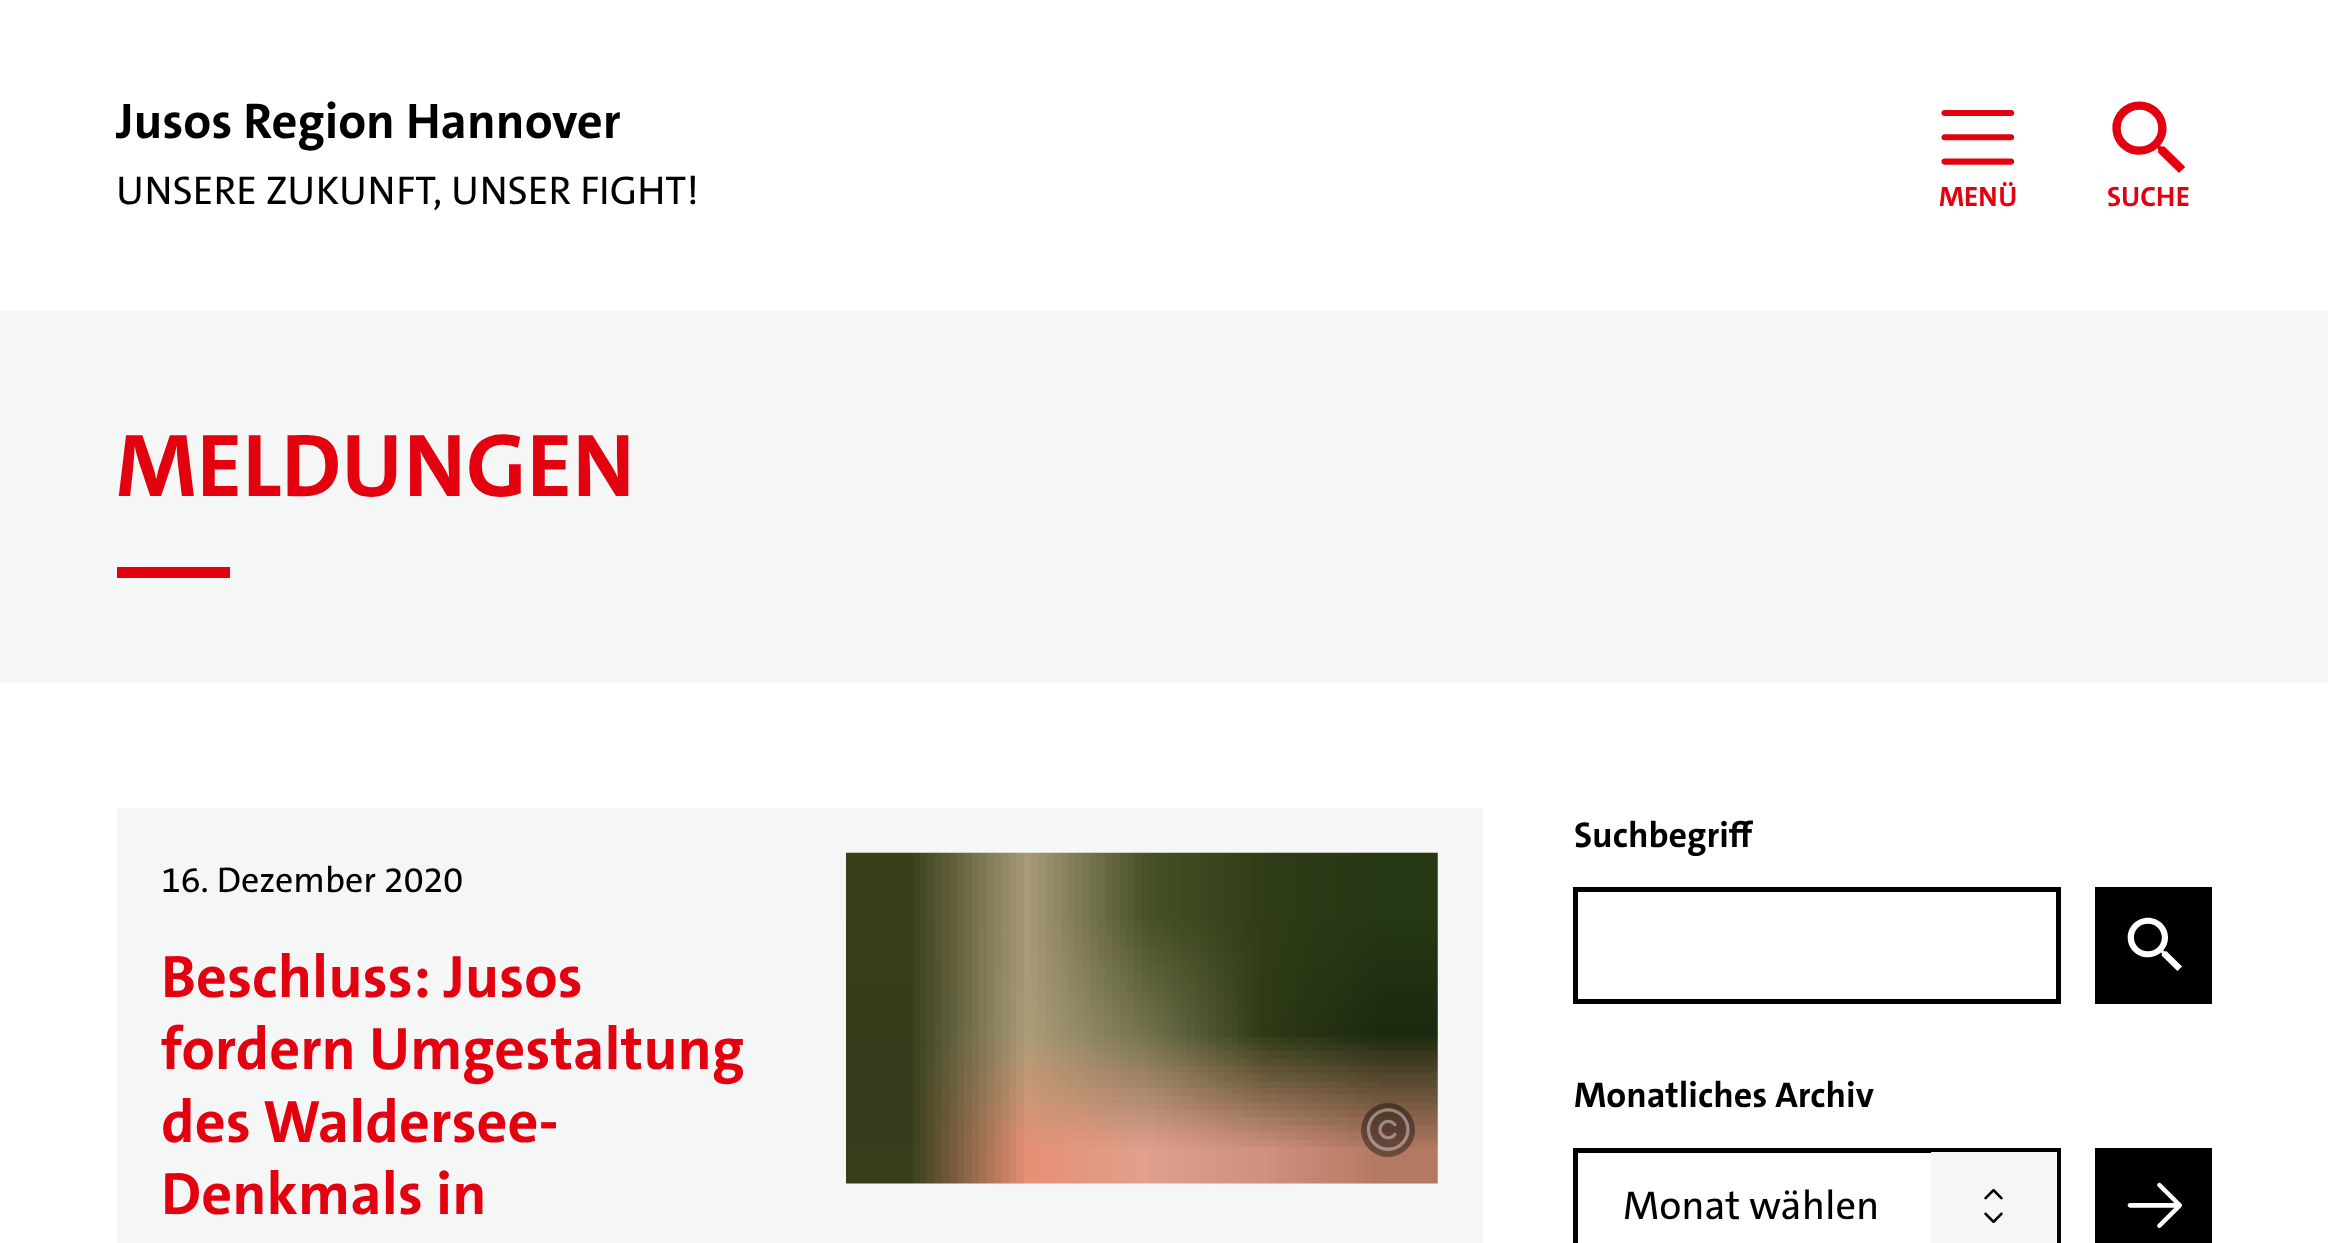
<svg xmlns="http://www.w3.org/2000/svg" width="2328" height="1243">
<style>
.a{font:bold 50.5px 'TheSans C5';fill:#000}
.b{font:500 40.3px 'TheSans C5';fill:#000}
.c{font:bold 28px 'TheSans C5';fill:#e3000f}
.d{font:bold 90px 'TheSans C5';fill:#e3000f}
.e{font:500 36px 'TheSans C5';fill:#000}
.f{font:bold 60.25px 'TheSans C5';fill:#e3000f}
.g{font:bold 36px 'TheSans C5';fill:#000}
.h{font:500 40.5px 'TheSans C5';fill:#000}
</style>
<rect width="100%" height="100%" fill="#fff"/>
<image href="1.png" x="1941" y="110" width="74" height="55"/>
<image href="2.png" x="2112" y="101" width="73" height="72"/>
<path fill="#f5f6f6" d="M0 311h2328v371H0z"/>
<path fill="#e3000f" d="M117 567h113v11H117z"/>
<path fill="#f5f6f6" d="M117 808h1366v435H117z"/>
<image href="3.png" x="846" y="852" width="592" height="332"/>
<circle fill="#00000066" cx="1388" cy="1130" r="27"/>
<image href="4.png" x="1366" y="1108" width="44" height="43"/>
<path fill="none" stroke="#000" stroke-width="5" d="M1575.5 889.5h483v112H1575.5z"/>
<path fill="#000" d="M2095 887h117v117H2095z"/>
<image href="5.png" x="2127" y="917" width="55" height="54"/>
<path fill="none" stroke="#000" stroke-width="5" d="M1575.5 1150.5h483v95H1575.5z"/>
<path fill="#f5f6f6" d="M1931 1152h126v91H1931z"/>
<image href="6.png" x="1984" y="1189" width="19" height="34"/>
<path fill="#000" d="M2095 1148h117v95H2095z"/>
<image href="7.png" x="2127" y="1182" width="55" height="46"/>
<text class="a" x="116" y="138">Jusos Region Hannover</text>
<text class="b" x="116" y="204">UNSERE ZUKUNFT, UNSER FIGHT!</text>
<text class="c" x="1939" y="206">MENÜ</text>
<text class="c" x="2107" y="206">SUCHE</text>
<text class="d" x="116" y="496">MELDUNGEN</text>
<text class="e" x="161" y="892">16. Dezember 2020</text>
<text class="f" x="161" y="997">Beschluss: Jusos</text>
<text class="f" x="161" y="1069">fordern Umgestaltung</text>
<text class="f" x="161" y="1142">des Waldersee-</text>
<text class="f" x="161" y="1214">Denkmals in</text>
<text class="g" x="1574" y="847">Suchbegriff</text>
<text class="g" x="1574" y="1107">Monatliches Archiv</text>
<text class="h" x="1623" y="1219">Monat wählen</text>
</svg>
